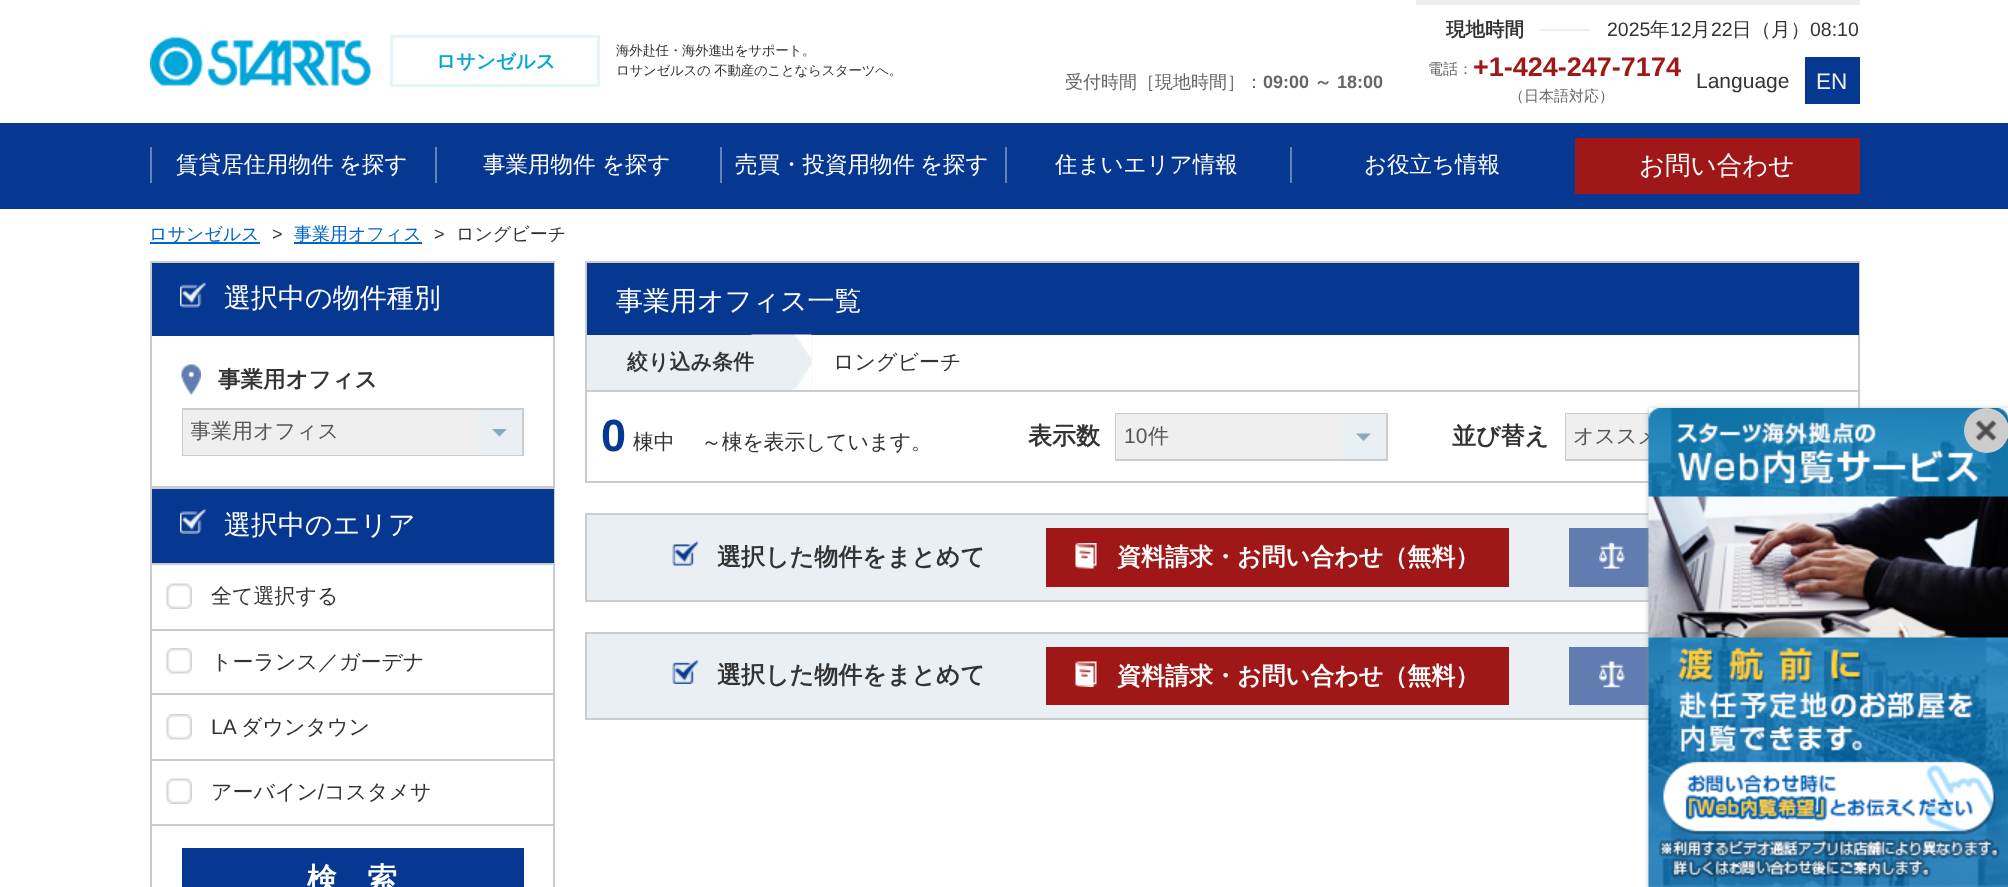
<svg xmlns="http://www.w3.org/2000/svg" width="2008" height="887">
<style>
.a{font:bold 19.5px WenQuanYi Zen Hei;fill:#01a8da}
.b{font:500 13.5px WenQuanYi Zen Hei;letter-spacing:-0.3px;fill:#333}
.c{font:bold 19.5px WenQuanYi Zen Hei;fill:#333}
.d{font:19.5px Liberation Sans;fill:#333}
.e{font:500 19.5px WenQuanYi Zen Hei;fill:#333}
.f{font:500 18px WenQuanYi Zen Hei;fill:#666}
.g{font:bold 18px Liberation Sans;fill:#666}
.h{font:bold 18px WenQuanYi Zen Hei;fill:#666}
.i{font:500 15px WenQuanYi Zen Hei;fill:#666}
.j{font:bold 27px Liberation Sans;fill:#a01717}
.k{font:21px Liberation Sans;fill:#333}
.l{font:22.5px Liberation Sans;fill:#eee}
.m{font:500 22.5px WenQuanYi Zen Hei;fill:#fff}
.n{font:500 25.5px WenQuanYi Zen Hei;fill:#fff}
.o{font:500 18px WenQuanYi Zen Hei;fill:#06c}
.p{font:18px Liberation Sans;fill:#333}
.q{font:500 18px WenQuanYi Zen Hei;fill:#333}
.r{font:500 27px WenQuanYi Zen Hei;fill:#fff}
.s{font:bold 22.5px WenQuanYi Zen Hei;fill:#333}
.t{font:500 21px WenQuanYi Zen Hei;fill:#555}
.u{font:500 21px WenQuanYi Zen Hei;fill:#333}
.v{font:bold 30px WenQuanYi Zen Hei;fill:#fff}
.w{font:bold 21px WenQuanYi Zen Hei;fill:#333}
.x{font:bold 45px Liberation Sans;letter-spacing:-0.3px;fill:#063791}
.y{font:500 21px WenQuanYi Zen Hei;letter-spacing:-0.3px;fill:#333}
.z{font:bold 24px WenQuanYi Zen Hei;fill:#333}
.a1{font:21px Liberation Sans;fill:#555}
.b1{font:bold 24px WenQuanYi Zen Hei;fill:#fff}
</style>
<defs>
<clipPath id="clip1"><path d="M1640 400h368v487h-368zm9 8h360v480h-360z" clip-rule="evenodd"/></clipPath>
<clipPath id="clip2"><path d="M191 417h286v30H191z"/></clipPath>
</defs>
<rect width="100%" height="100%" fill="#fff"/>
<image href="1.png" x="150" y="37" width="221" height="49"/>
<path fill="none" stroke="#e5f6fb" stroke-width="3" d="M391.5 36.5h207v49H391.5z"/>
<path fill="#eee" d="M1416 0h444v5H1416z"/>
<path fill="#eee" d="M1539 29h51v2H1539z"/>
<path fill="#063791" d="M1805 57h55v47H1805z"/>
<path fill="#063791" d="M0 123h2008v86H0z"/>
<path fill="#6482ba" d="M150 147h2v36H150z"/>
<path fill="#6482ba" d="M435 147h2v36H435z"/>
<path fill="#6482ba" d="M720 147h2v36H720z"/>
<path fill="#6482ba" d="M1005 147h2v36H1005z"/>
<path fill="#6482ba" d="M1290 147h2v36H1290z"/>
<path fill="#a01717" d="M1575 138h285v56H1575z"/>
<path fill="#06c" d="M150 242h110v2H150z"/>
<path fill="#06c" d="M294 242h128v2H294z"/>
<path fill="none" stroke="#ccc" stroke-width="2" d="M151 262h403v225H151z"/>
<path fill="#063791" d="M152 263h402v73H152z"/>
<image href="2.png" x="180" y="282" width="26" height="26"/>
<image href="3.png" x="181" y="364" width="20" height="31"/>
<path fill="none" stroke="#ccc" stroke-width="2" d="M183 409h340v46H183z"/>
<path fill="#efefef" d="M183 410h294v45H183z"/>
<path fill="#e9eff2" d="M477 410h45v45H477z"/>
<path fill="#88abb9" d="M492 429h15l-7.5 7.5z"/>
<path fill="none" stroke="#ccc" stroke-width="2" d="M151 489h403v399H151z"/>
<path fill="#063791" d="M152 489h402v74H152z"/>
<image href="4.png" x="180" y="508" width="26" height="26"/>
<path fill="#ccc" d="M152 563h402v2H152z"/>
<image href="5.png" x="166" y="583" width="26" height="26"/>
<path fill="#ccc" d="M152 629h402v2H152z"/>
<image href="6.png" x="166" y="648" width="26" height="26"/>
<path fill="#ccc" d="M152 693h402v2H152z"/>
<image href="6.png" x="166" y="714" width="26" height="26"/>
<path fill="#ccc" d="M152 759h402v2H152z"/>
<path fill="#ccc" d="M152 824h402v2H152z"/>
<image href="5.png" x="166" y="778" width="26" height="26"/>
<path fill="#063791" d="M182 848h342v39H182z"/>
<path fill="none" stroke="#ccc" stroke-width="2" d="M586 262h1273v220H586z"/>
<path fill="#063791" d="M587 263h1272v72H587z"/>
<path fill="#e9eff2" d="M587 335h225v55H587z"/>
<image href="7.png" x="751" y="334" width="61" height="56"/>
<path fill="#ccc" d="M587 390h1272v2H587z"/>
<path fill="none" stroke="#ccc" stroke-width="2" d="M1116 414h271v46H1116z"/>
<path fill="#efefef" d="M1116 414h225v45H1116z"/>
<path fill="#e9eff2" d="M1341 414h45v45H1341z"/>
<path fill="#88abb9" d="M1356 433.5h15l-7.5 7.5z"/>
<path fill="none" stroke="#ccc" stroke-width="2" d="M1566 414h271v46H1566z"/>
<path fill="#efefef" d="M1566 414h86v45H1566z"/>
<path fill="#e9eff2" d="M587 515h1062v85H587z"/>
<path fill="none" stroke="#ccc" stroke-width="2" d="M586 514h1273v87H586z"/>
<image href="8.png" x="672" y="541" width="27" height="25"/>
<path fill="#a01717" d="M1046 528h463v59H1046z"/>
<image href="9.png" x="1075" y="543" width="22" height="26"/>
<path fill="#607cb0" d="M1569 528h80v59H1569z"/>
<image href="10.png" x="1599" y="542" width="26" height="27"/>
<path fill="#e9eff2" d="M587 634h1062v84H587z"/>
<path fill="none" stroke="#ccc" stroke-width="2" d="M586 633h1273v86H586z"/>
<image href="11.png" x="672" y="660" width="27" height="24"/>
<path fill="#a01717" d="M1046 647h463v58H1046z"/>
<image href="12.png" x="1075" y="661" width="22" height="26"/>
<path fill="#607cb0" d="M1569 647h80v58H1569z"/>
<image href="13.png" x="1599" y="661" width="26" height="27"/>
<g clip-path="url(#clip1)">
<path fill="#999" filter="blur(3px)" d="M1650 410h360v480H1650z"/>
</g>
<text class="a" x="436" y="68">ロサンゼルス</text>
<text class="b" x="616" y="55">海外赴任・海外進出をサポート。</text>
<text class="b" x="616" y="75">ロサンゼルスの 不動産のことならスターツへ。</text>
<text class="c" x="1446" y="36">現地時間</text>
<text class="d" x="1607" y="36">2025</text>
<text class="e" x="1650" y="36">年</text>
<text class="d" x="1670" y="36">12</text>
<text class="e" x="1691" y="36">月</text>
<text class="d" x="1711" y="36">22</text>
<text class="e" x="1732" y="36">日（月）</text>
<text class="d" x="1810" y="36">08:10</text>
<text class="f" x="1065" y="88">受付時間［現地時間］：</text>
<text class="g" x="1263" y="88">09:00</text>
<text class="h" x="1314" y="88">～</text>
<text class="g" x="1337" y="88">18:00</text>
<text class="i" x="1428" y="74">電話：</text>
<text class="j" x="1473" y="76">+1-424-247-7174</text>
<text class="i" x="1509" y="101">（日本語対応）</text>
<text class="k" x="1696" y="88">Language</text>
<text class="l" x="1816" y="89">EN</text>
<text class="m" x="176" y="172">賃貸居住用物件</text>
<text class="m" x="339" y="172">を探す</text>
<text class="m" x="483" y="172">事業用物件</text>
<text class="m" x="602" y="172">を探す</text>
<text class="m" x="735" y="172">売買・投資用物件</text>
<text class="m" x="920" y="172">を探す</text>
<text class="m" x="1055" y="172">住まいエリア情報</text>
<text class="m" x="1364" y="172">お役立ち情報</text>
<text class="n" x="1639" y="174">お問い合わせ</text>
<text class="o" x="149" y="240">ロサンゼルス</text>
<text class="p" x="272" y="240">&gt;</text>
<text class="o" x="294" y="240">事業用オフィス</text>
<text class="p" x="434" y="240">&gt;</text>
<text class="q" x="456" y="240">ロングビーチ</text>
<text class="r" x="224" y="307">選択中の物件種別</text>
<text class="s" x="218" y="387">事業用オフィス</text>
<g clip-path="url(#clip2)">
<text class="t" x="190" y="438">事業用オフィス</text>
</g>
<text class="r" x="224" y="534">選択中のエリア</text>
<text class="u" x="211" y="603">全て選択する</text>
<text class="u" x="211" y="669">トーランス／ガーデナ</text>
<text class="k" x="211" y="734">LA</text>
<text class="u" x="241" y="734">ダウンタウン</text>
<text class="u" x="211" y="799">アーバイン</text>
<text class="k" x="318" y="799">/</text>
<text class="u" x="324" y="799">コスタメサ</text>
<text class="v" x="307" y="889">検　索</text>
<text class="r" x="616" y="310">事業用オフィス一覧</text>
<text class="w" x="627" y="369">絞り込み条件</text>
<text class="u" x="833" y="369">ロングビーチ</text>
<text class="x" x="601" y="451">0</text>
<text class="y" x="633" y="449">棟中</text>
<text class="y" x="701" y="449">～棟を表示しています。</text>
<text class="z" x="1028" y="444">表示数</text>
<text class="a1" x="1124" y="443">10</text>
<text class="t" x="1148" y="443">件</text>
<text class="z" x="1452" y="444">並び替え</text>
<text class="t" x="1573" y="443">オススメ</text>
<text class="z" x="717" y="565">選択した物件をまとめて</text>
<text class="b1" x="1117" y="565">資料請求・お問い合わせ（無料）</text>
<text class="z" x="717" y="683">選択した物件をまとめて</text>
<text class="b1" x="1117" y="684">資料請求・お問い合わせ（無料）</text>
<image href="14.png" x="1648" y="408" width="360" height="479"/>
<circle fill="#ccc" cx="1986.5" cy="430.5" r="22.5"/>
<image href="15.png" x="1975" y="420" width="22" height="21"/>
</svg>
